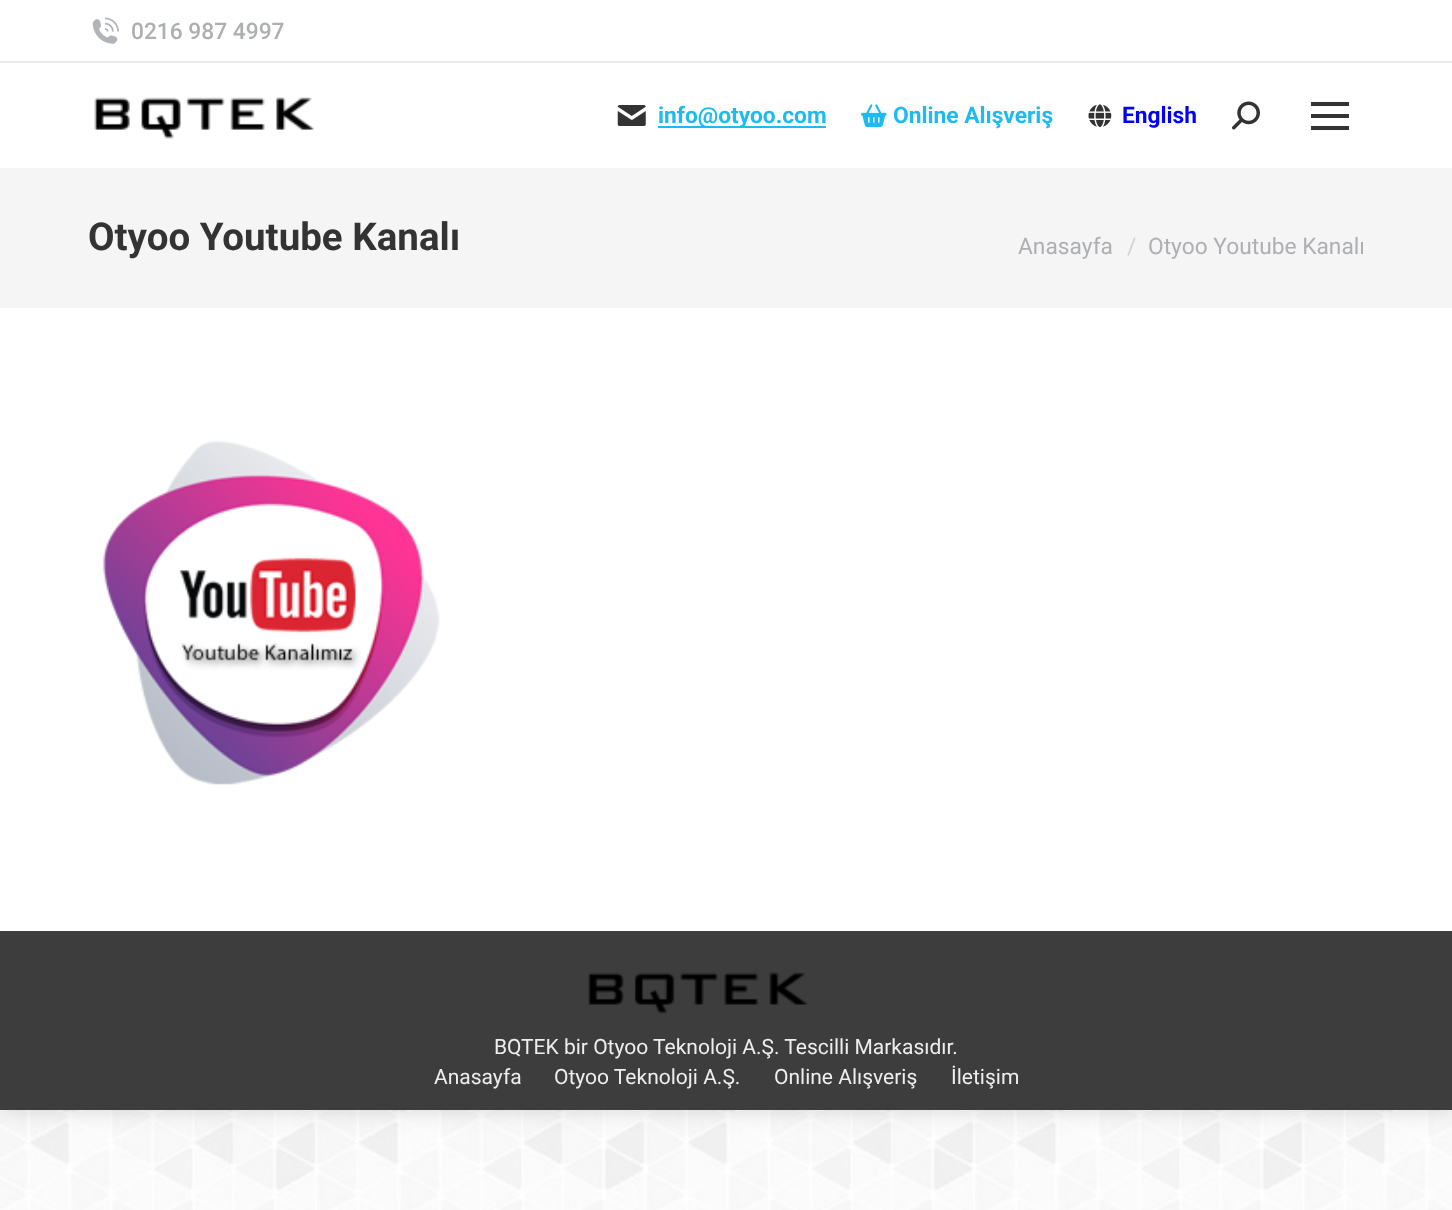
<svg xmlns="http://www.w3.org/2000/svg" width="1452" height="1210">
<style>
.a{font:500 22.75px Roboto;fill:#adafb3}
.b{font:bold 22.75px Roboto;fill:#1ebbf0}
.c{font:bold 22.75px Roboto;fill:#00f}
.d{font:bold 38.5px Roboto;fill:#333}
.e{font:22.75px Roboto;fill:#adafb3}
.f{font:22.75px Roboto;fill:#d1d2d4}
.g{font:21px Roboto;fill:#eee}
</style>
<rect width="100%" height="100%" fill="#fff"/>
<image href="1.png" x="0" y="1110" width="1452" height="100"/>
<path fill="#00000026" filter="blur(10.5px)" d="M0 0h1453v1110H0z"/>
<path fill="#fff" d="M0 0h1452v931H0z"/>
<image href="2.png" x="92" y="17" width="27" height="27"/>
<path fill="#e9e9e9" d="M0 61h1452v2H0z"/>
<image href="3.png" x="94" y="97" width="220" height="42"/>
<image href="4.png" x="617" y="105" width="29" height="21"/>
<path fill="#1ebbf0" d="M658 126h168v2H658z"/>
<image href="5.png" x="861" y="104" width="26" height="24"/>
<image href="6.png" x="1088" y="104" width="24" height="24"/>
<image href="7.png" x="1232" y="101" width="28" height="29"/>
<path fill="#333" d="M1311 102h38v4H1311z"/>
<path fill="#333" d="M1311 114h38v4H1311z"/>
<path fill="#333" d="M1311 126h38v4H1311z"/>
<path fill="#f5f5f5" d="M0 168h1452v140H0z"/>
<image href="8.png" x="102" y="440" width="338" height="345"/>
<path fill="#3d3d3d" d="M0 931h1452v179H0z"/>
<image href="9.png" x="588" y="972" width="220" height="42"/>
<text class="a" x="131" y="39">0216 987 4997</text>
<text class="b" x="658" y="123">info@otyoo.com</text>
<text class="b" x="893" y="123">Online Alışveriş</text>
<text class="c" x="1122" y="123">English</text>
<text class="d" x="88" y="250">Otyoo Youtube Kanalı</text>
<text class="e" x="1018" y="254">Anasayfa</text>
<text class="f" x="1127" y="254">/</text>
<text class="e" x="1148" y="254">Otyoo Youtube Kanalı</text>
<text class="g" x="494" y="1054">BQTEK bir Otyoo Teknoloji A.Ş. Tescilli Markasıdır.</text>
<text class="g" x="434" y="1084">Anasayfa</text>
<text class="g" x="554" y="1084">Otyoo Teknoloji A.Ş.</text>
<text class="g" x="774" y="1084">Online Alışveriş</text>
<text class="g" x="951" y="1084">İletişim</text>
</svg>
